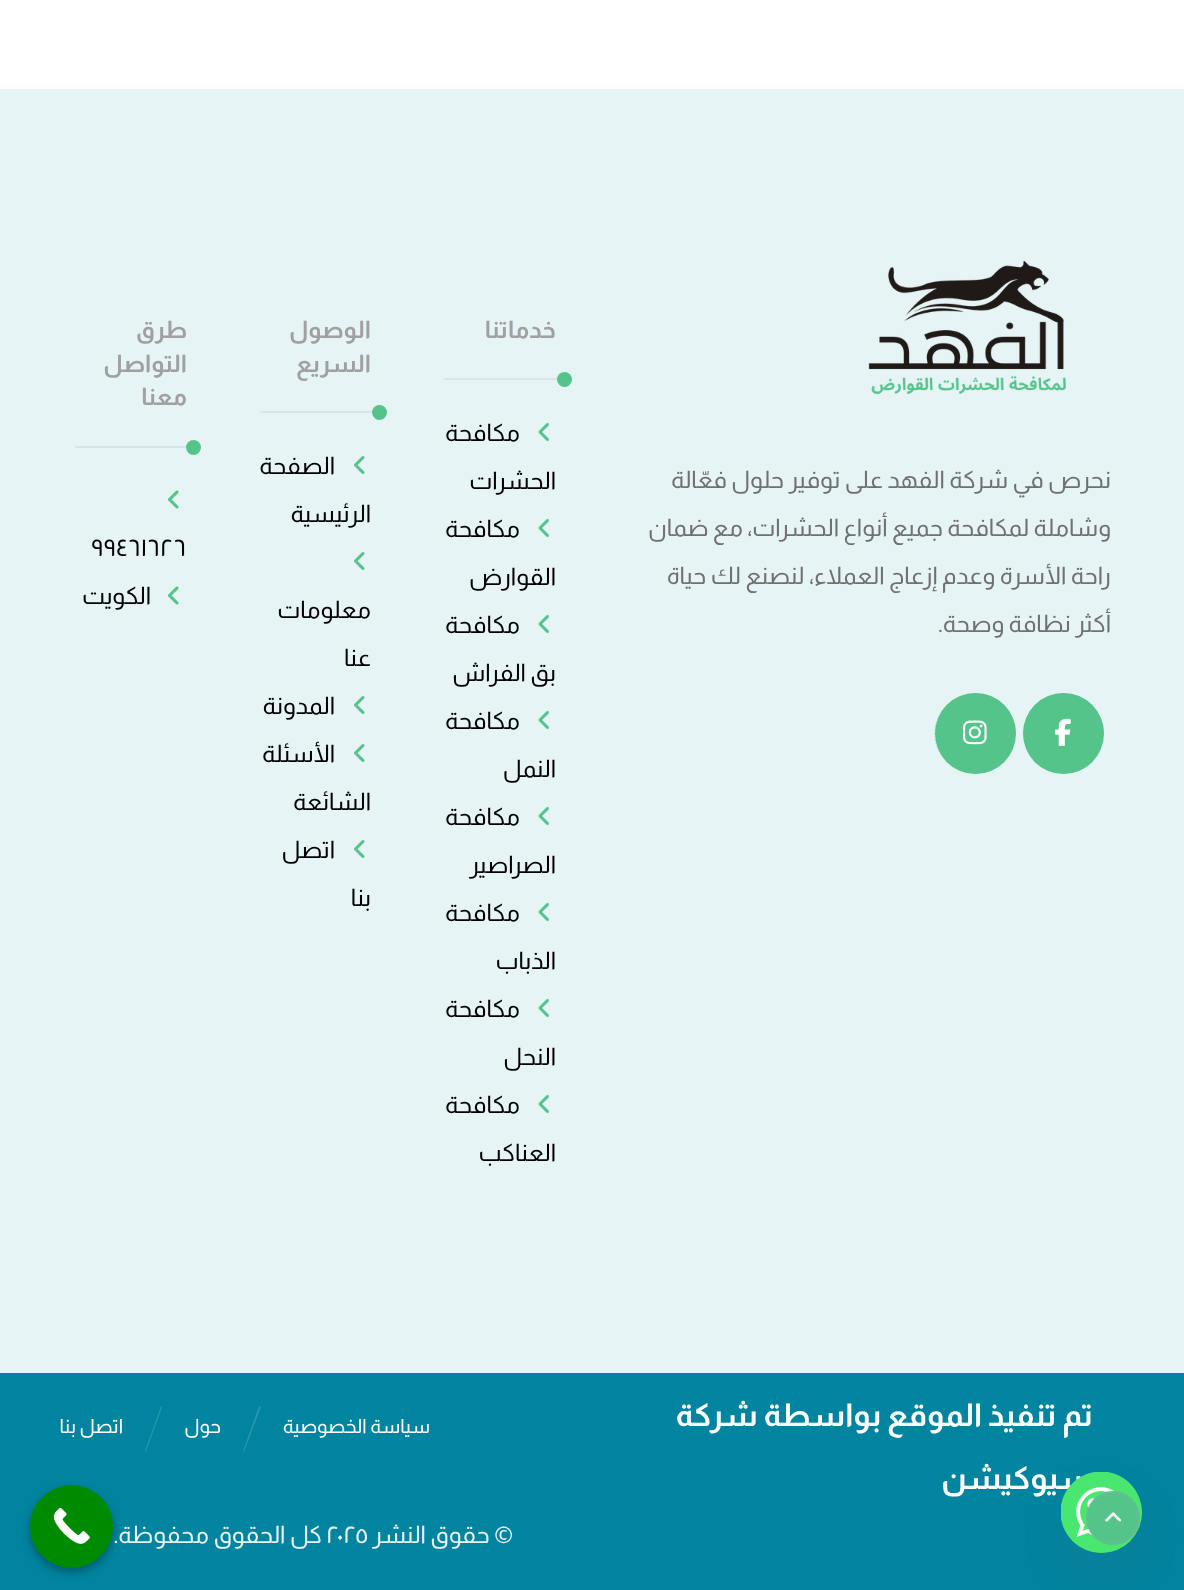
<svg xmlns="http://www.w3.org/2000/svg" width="1184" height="1590">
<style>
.a{font:24px Almarai;direction:rtl;fill:#707070}
.b{font:bold 24px Almarai;direction:rtl;fill:#a0a0a0}
.c{font:24px Almarai;direction:rtl;fill:#000}
.d{font:24px Almarai;fill:#000}
.e{font:bold 31.5px Almarai;direction:rtl;fill:#fff}
.f{font:19.5px Almarai;direction:rtl;fill:#fff}
.g{font:24px Almarai;direction:rtl;fill:#e8f4f6}
.h{font:24px Almarai;fill:#e8f4f6}
</style>
<rect width="100%" height="100%" fill="#fff"/>
<path fill="#e6f4f6" d="M0 89h1184v1284H0z"/>
<image href="1.png" x="868" y="260" width="198" height="135"/>
<circle fill="#55c48b" cx="1063.5" cy="733.5" r="40.5"/>
<path fill="none" stroke="#55c48b4d" stroke-width="1.5" stroke-dasharray="1.5 1.5" d="M1063.5 694c22 0 39.5 17.5 39.5 39.5c0 22-17.5 39.5-39.5 39.5c-22 0-39.5-17.5-39.5-39.5c0-22 17.5-39.5 39.5-39.5z"/>
<image href="2.png" x="1055" y="718" width="16" height="28"/>
<circle fill="#55c48b" cx="975.5" cy="733.5" r="40.5"/>
<path fill="none" stroke="#55c48b4d" stroke-width="1.5" stroke-dasharray="1.5 1.5" d="M975 694c22 0 40 17.5 40 39.5c0 22-18 39.5-40 39.5c-22 0-40-17.5-40-39.5c0-22 18-39.5 40-39.5z"/>
<image href="3.png" x="963" y="720" width="24" height="25"/>
<path fill="#d9e5e6" d="M444 378h113v2H444z"/>
<circle fill="#55c48b" cx="564.5" cy="379.5" r="7.5"/>
<image href="4.png" x="538" y="423" width="11" height="18"/>
<image href="4.png" x="538" y="519" width="11" height="18"/>
<image href="4.png" x="538" y="615" width="11" height="18"/>
<image href="4.png" x="538" y="711" width="11" height="18"/>
<image href="4.png" x="538" y="807" width="11" height="18"/>
<image href="4.png" x="538" y="903" width="11" height="18"/>
<image href="4.png" x="538" y="999" width="11" height="18"/>
<image href="4.png" x="538" y="1095" width="11" height="18"/>
<path fill="#d9e5e6" d="M260 411h112v2H260z"/>
<circle fill="#55c48b" cx="379.5" cy="412.5" r="7.5"/>
<image href="5.png" x="354" y="456" width="11" height="18"/>
<image href="5.png" x="354" y="552" width="11" height="18"/>
<image href="5.png" x="354" y="696" width="11" height="18"/>
<image href="5.png" x="354" y="744" width="11" height="18"/>
<image href="5.png" x="354" y="840" width="11" height="18"/>
<path fill="#d9e5e6" d="M75 446h111v2H75z"/>
<circle fill="#55c48b" cx="193.5" cy="447.5" r="7.5"/>
<image href="6.png" x="168" y="490" width="11" height="19"/>
<image href="6.png" x="168" y="586" width="11" height="19"/>
<path fill="#01849f" d="M0 1373h1184v217H0z"/>
<path fill="#2796ad" d="M259 1406l2 1l-17 45l-1-1z"/>
<path fill="#2796ad" d="M161 1406l1 1l-16 45l-1-1z"/>
<rect fill="#49687e29" filter="blur(18px)" x="1061" y="1496" width="81" height="81" rx="40.5"/>
<rect fill="#0000004d" filter="blur(4.5px)" x="30" y="1490" width="83" height="82" rx="41"/>
<circle fill="#008a00" cx="71.5" cy="1526.5" r="41.5"/>
<image href="8.png" x="53" y="1507" width="37" height="37"/>
<text class="a" x="1111" y="488">نحرص في شركة الفهد على توفير حلول فعّالة</text>
<text class="a" x="1111" y="536">وشاملة لمكافحة جميع أنواع الحشرات، مع ضمان</text>
<text class="a" x="1111" y="584">راحة الأسرة وعدم إزعاج العملاء، لنصنع لك حياة</text>
<text class="a" x="1111" y="632">أكثر نظافة وصحة.</text>
<text class="b" x="556" y="338">خدماتنا</text>
<text class="c" x="520" y="441">مكافحة</text>
<text class="c" x="556" y="489">الحشرات</text>
<text class="c" x="520" y="537">مكافحة</text>
<text class="c" x="556" y="585">القوارض</text>
<text class="c" x="520" y="633">مكافحة</text>
<text class="c" x="556" y="681">بق الفراش</text>
<text class="c" x="520" y="729">مكافحة</text>
<text class="c" x="556" y="777">النمل</text>
<text class="c" x="520" y="825">مكافحة</text>
<text class="c" x="556" y="873">الصراصير</text>
<text class="c" x="520" y="921">مكافحة</text>
<text class="c" x="556" y="969">الذباب</text>
<text class="c" x="520" y="1017">مكافحة</text>
<text class="c" x="556" y="1065">النحل</text>
<text class="c" x="520" y="1113">مكافحة</text>
<text class="c" x="556" y="1161">العناكب</text>
<text class="b" x="371" y="338">الوصول</text>
<text class="b" x="371" y="372">السريع</text>
<text class="c" x="335" y="474">الصفحة</text>
<text class="c" x="371" y="522">الرئيسية</text>
<text class="c" x="371" y="618">معلومات</text>
<text class="c" x="371" y="666">عنا</text>
<text class="c" x="335" y="714">المدونة</text>
<text class="c" x="335" y="762">الأسئلة</text>
<text class="c" x="371" y="810">الشائعة</text>
<text class="c" x="335" y="858">اتصل</text>
<text class="c" x="371" y="906">بنا</text>
<text class="b" x="187" y="338">طرق</text>
<text class="b" x="187" y="372">التواصل</text>
<text class="b" x="187" y="405">معنا</text>
<text class="d" x="91" y="556">٩٩٤٦١٦٢٦</text>
<text class="c" x="151" y="604">الكويت</text>
<text class="e" x="1093" y="1426">تم تنفيذ الموقع بواسطة شركة</text>
<text class="e" x="1093" y="1489">سيوكيشن</text>
<text class="f" x="430" y="1433">سياسة الخصوصية</text>
<text class="f" x="221" y="1433">حول</text>
<text class="f" x="123" y="1433">اتصل بنا</text>
<text class="g" x="513" y="1543">© حقوق النشر</text>
<text class="h" x="326" y="1543">٢٠٢٥</text>
<text class="g" x="322" y="1543">كل الحقوق محفوظة.</text>
<circle fill="#49e670" cx="1101.5" cy="1512.5" r="40.5"/>
<image href="7.png" x="1061" y="1472" width="81" height="81"/>
<circle fill="#55c48b" cx="1113" cy="1518" r="27"/>
<circle fill="none" stroke="#a7a7a733" stroke-width="2" cx="1113" cy="1518" r="26"/>
<image href="9.png" x="1105" y="1512" width="16" height="10"/>
</svg>
